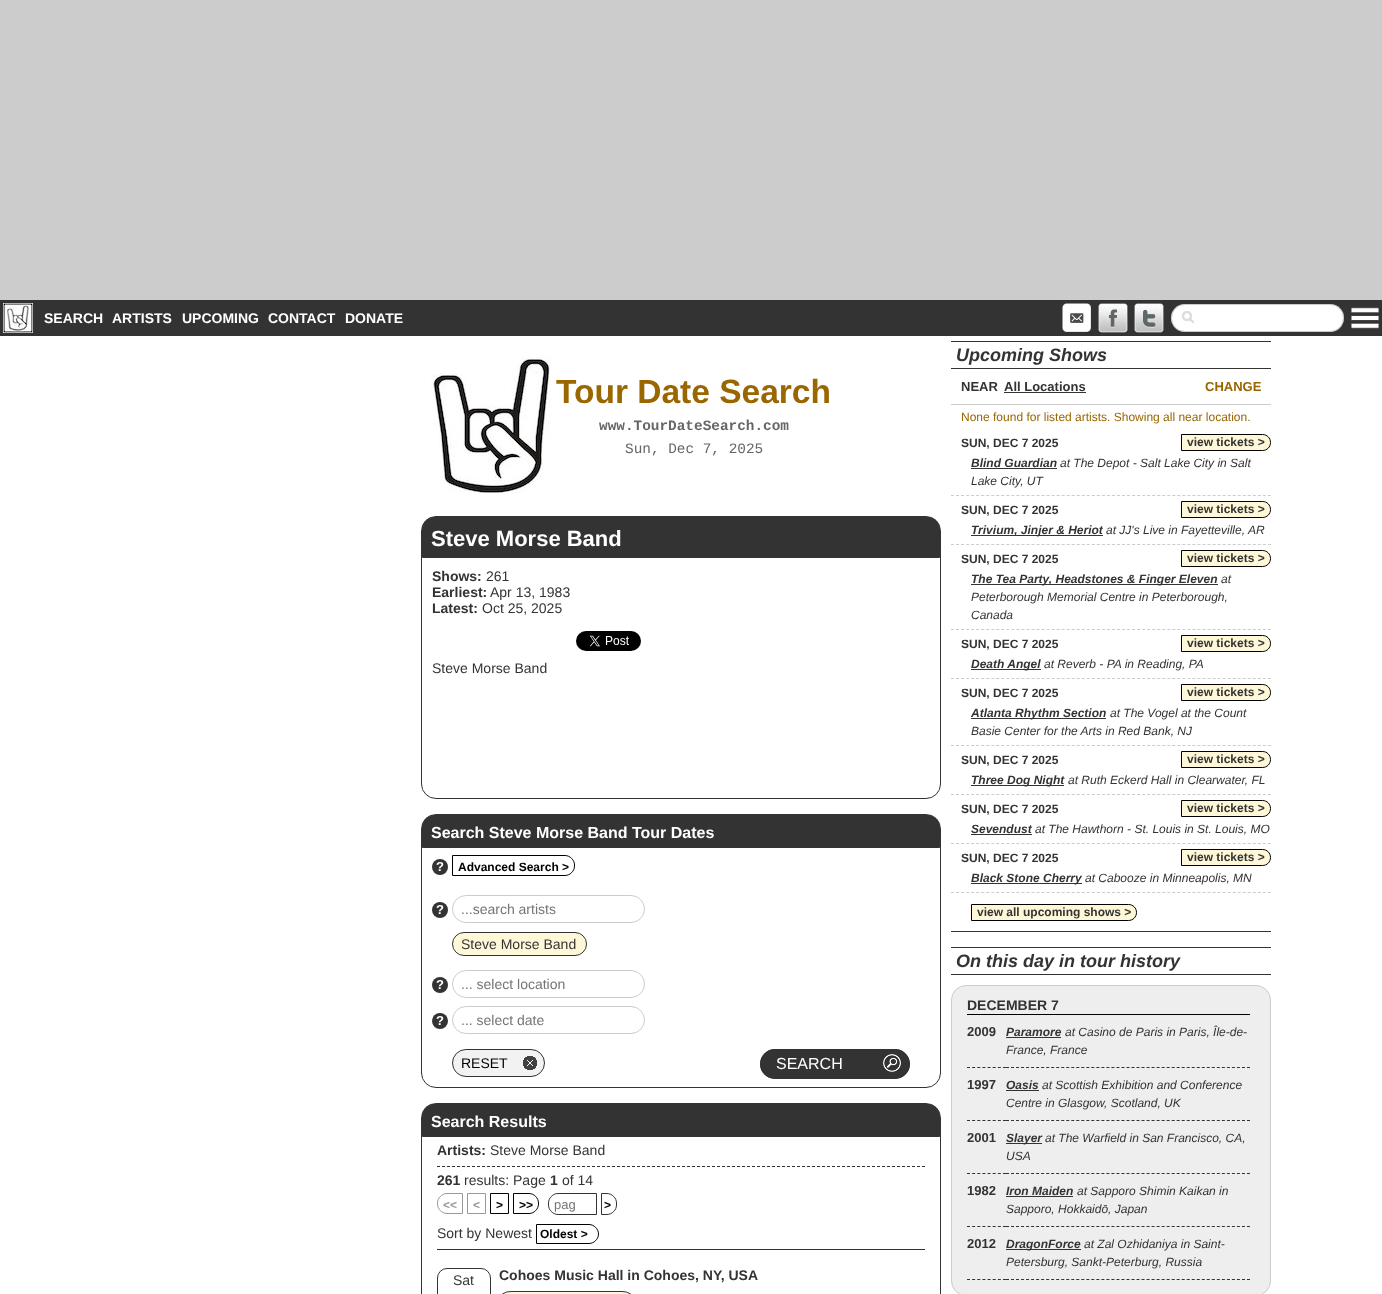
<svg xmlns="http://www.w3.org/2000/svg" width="1382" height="1294">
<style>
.a{font:bold 14px Liberation Sans;fill:#fff}
.b{font:bold 33.5px Liberation Sans;fill:#960}
.c{font:bold 14.4px Liberation Mono;fill:#666}
.d{font:14.4px Liberation Mono;fill:#666}
.e{font:bold 22px Liberation Sans;fill:#fff}
.f{font:bold 14px Liberation Sans;fill:#333}
.g{font:14px Liberation Sans;fill:#333}
.h{font:bold 16px Liberation Sans;fill:#fff}
.i{font:bold 13px Liberation Sans;fill:#fff}
.j{font:bold 12px Liberation Sans;fill:#000}
.k{font:14px Liberation Sans;fill:#757575}
.l{font:14px Liberation Sans;fill:#000}
.m{font:16px Liberation Sans;fill:#fff}
.n{font:bold 12px Liberation Sans;fill:#999}
.o{font:13px Liberation Sans;fill:#757575}
.p{font:italic bold 18px Liberation Sans;fill:#333}
.q{font:bold 13px Liberation Sans;fill:#333}
.r{font:bold 13px Liberation Sans;fill:#960}
.s{font:12px Liberation Sans;fill:#960}
.t{font:bold 12px Liberation Sans;fill:#333}
.u{font:italic bold 12px Liberation Sans;fill:#333}
.v{font:italic 12px Liberation Sans;fill:#333}
</style>
<rect width="100%" height="100%" fill="#fff"/>
<path fill="#ccc" d="M0 0h1382v300H0z"/>
<path fill="#333" d="M0 300h1382v36H0z"/>
<image href="1.png" x="3" y="303" width="30" height="30"/>
<image href="2.png" x="1062" y="303" width="29" height="30"/>
<image href="3.png" x="1098" y="303" width="30" height="30"/>
<image href="4.png" x="1134" y="303" width="30" height="30"/>
<rect fill="#fff" x="1171" y="304" width="173" height="28" rx="14"/>
<image href="5.png" x="1182" y="311" width="12" height="12"/>
<rect fill="none" stroke="#00000033" x="1171.5" y="304.5" width="172" height="27" rx="13.5"/>
<image href="6.png" x="1351" y="307" width="28" height="22"/>
<image href="7.png" x="431" y="357" width="120" height="136"/>
<rect fill="none" stroke="#333" x="421.5" y="516.5" width="519" height="282" rx="14.5"/>
<path fill="#333" stroke="#333" d="M434 517.5h494c6.5 0 11.5 5 11.5 11.5v28.5h-517v-28.5c0-6.5 5-11.5 11.5-11.5z"/>
<image href="8.png" x="576" y="631" width="65" height="20"/>
<rect fill="none" stroke="#333" x="421.5" y="814.5" width="519" height="273" rx="14.5"/>
<path fill="#333" stroke="#333" d="M434 815.5h494c6.5 0 11.5 5 11.5 11.5v20.5h-517v-20.5c0-6.5 5-11.5 11.5-11.5z"/>
<circle fill="#333" cx="440" cy="867" r="8"/>
<path fill="none" stroke="#000" d="M452.5 855.5h112.5c5 0 9.5 4.5 9.5 9.5v1c0 5-4.5 9.5-9.5 9.5h-112.5z"/>
<circle fill="#333" cx="440" cy="910" r="8"/>
<rect fill="none" stroke="#ccc" x="452.5" y="895.5" width="192" height="27" rx="13.5"/>
<rect fill="#fff8d8" stroke="#333" x="452.5" y="932.5" width="134" height="23" rx="11.5"/>
<circle fill="#333" cx="440" cy="985" r="8"/>
<rect fill="none" stroke="#ccc" x="452.5" y="970.5" width="192" height="27" rx="13.5"/>
<circle fill="#333" cx="440" cy="1021" r="8"/>
<rect fill="none" stroke="#ccc" x="452.5" y="1006.5" width="192" height="27" rx="13.5"/>
<rect fill="#f2f2f2" x="452" y="1049" width="93" height="28" rx="14"/>
<image href="9.png" x="523" y="1056" width="14" height="14"/>
<rect fill="none" stroke="#333" x="452.5" y="1049.5" width="92" height="27" rx="13.5"/>
<rect fill="#333" x="760" y="1049" width="150" height="30" rx="15"/>
<image href="10.png" x="883" y="1054" width="18" height="18"/>
<rect fill="none" stroke="#333" x="760.5" y="1049.5" width="149" height="29" rx="14.5"/>
<rect fill="none" stroke="#333" x="421.5" y="1103.5" width="519" height="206" rx="14.5"/>
<path fill="#333" stroke="#333" d="M434 1104.5h494c6.5 0 11.5 5 11.5 11.5v20.5h-517v-20.5c0-6.5 5-11.5 11.5-11.5z"/>
<path fill="none" stroke="#333" stroke-dasharray="3 2" d="M437 1166.5h488"/>
<path fill="none" stroke="#999" d="M447 1193.5h15.5v20h-15.5c-5 0-9.5-4.5-9.5-9.5v-1c0-5 4.5-9.5 9.5-9.5z"/>
<path fill="none" stroke="#999" d="M467.5 1193.5h18v20H467.5z"/>
<path fill="none" stroke="#000" d="M490.5 1193.5h18v20H490.5z"/>
<path fill="none" stroke="#000" d="M513.5 1193.5h15.5c5 0 9.5 4.5 9.5 9.5v1c0 5-4.5 9.5-9.5 9.5h-15.5z"/>
<path fill="none" stroke="#333" d="M558 1193.5h38.5v21h-38.5c-5 0-9.5-4.5-9.5-9.5v-2c0-5 4.5-9.5 9.5-9.5z"/>
<path fill="none" stroke="#333" d="M601.5 1193.5h5.5c5 0 9.5 4.5 9.5 9.5v2c0 5-4.5 9.5-9.5 9.5h-5.5z"/>
<path fill="#333" d="M437 1249h488v1H437z"/>
<path fill="none" stroke="#000" d="M536.5 1224.5h52.5c5 0 9.5 4.5 9.5 9.5c0 5-4.5 9.5-9.5 9.5h-52.5z"/>
<rect fill="none" stroke="#333" x="437.5" y="1268.5" width="53" height="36" rx="9.5"/>
<rect fill="#fff8d8" stroke="#333" x="499.5" y="1291.5" width="134" height="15" rx="11.5"/>
<path fill="#333" d="M951 341h320v1H951z"/>
<path fill="#333" d="M951 368h320v1H951z"/>
<path fill="#ccc" d="M951 404h320v1H951z"/>
<path fill="#333" d="M1004 392h82v1H1004z"/>
<path fill="none" stroke="#ccc" stroke-dasharray="3 2.03" d="M951 495.5h320"/>
<path fill="#fff8d8" stroke="#000" d="M1181.5 434.5h81c4.5 0 8 3.5 8 8c0 4.5-3.5 8-8 8h-81z"/>
<path fill="#333" d="M971 468h86v1H971z"/>
<path fill="none" stroke="#ccc" stroke-dasharray="3 2.03" d="M951 544.5h320"/>
<path fill="#fff8d8" stroke="#000" d="M1181.5 501.5h81c4.5 0 8 3.5 8 8c0 4.5-3.5 8-8 8h-81z"/>
<path fill="#333" d="M971 535h132v1H971z"/>
<path fill="none" stroke="#ccc" stroke-dasharray="3 2.03" d="M951 629.5h320"/>
<path fill="#fff8d8" stroke="#000" d="M1181.5 550.5h81c4.5 0 8 3.5 8 8c0 4.5-3.5 8-8 8h-81z"/>
<path fill="#333" d="M971 584h247v1H971z"/>
<path fill="none" stroke="#ccc" stroke-dasharray="3 2.03" d="M951 678.5h320"/>
<path fill="#fff8d8" stroke="#000" d="M1181.5 635.5h81c4.5 0 8 3.5 8 8c0 4.5-3.5 8-8 8h-81z"/>
<path fill="#333" d="M971 669h70v1H971z"/>
<path fill="none" stroke="#ccc" stroke-dasharray="3 2.03" d="M951 745.5h320"/>
<path fill="#fff8d8" stroke="#000" d="M1181.5 684.5h81c4.5 0 8 3.5 8 8c0 4.5-3.5 8-8 8h-81z"/>
<path fill="#333" d="M971 718h135v1H971z"/>
<path fill="none" stroke="#ccc" stroke-dasharray="3 2.03" d="M951 794.5h320"/>
<path fill="#fff8d8" stroke="#000" d="M1181.5 751.5h81c4.5 0 8 3.5 8 8c0 4.5-3.5 8-8 8h-81z"/>
<path fill="#333" d="M971 785h93v1H971z"/>
<path fill="none" stroke="#ccc" stroke-dasharray="3 2.03" d="M951 843.5h320"/>
<path fill="#fff8d8" stroke="#000" d="M1181.5 800.5h81c4.5 0 8 3.5 8 8c0 4.5-3.5 8-8 8h-81z"/>
<path fill="#333" d="M971 834h61v1H971z"/>
<path fill="none" stroke="#ccc" stroke-dasharray="3 2.03" d="M951 892.5h320"/>
<path fill="#fff8d8" stroke="#000" d="M1181.5 849.5h81c4.5 0 8 3.5 8 8c0 4.5-3.5 8-8 8h-81z"/>
<path fill="#333" d="M971 883h111v1H971z"/>
<path fill="#fff8d8" stroke="#000" d="M971.5 904.5h157c4.5 0 8 3.5 8 8c0 4.5-3.5 8-8 8h-157z"/>
<path fill="#333" d="M951 931h320v1H951z"/>
<path fill="#333" d="M951 947h320v1H951z"/>
<path fill="#333" d="M951 974h320v1H951z"/>
<rect fill="#eee" stroke="#ccc" x="951.5" y="985.5" width="319" height="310" rx="14.5"/>
<path fill="#000" d="M967 1014h283v1H967z"/>
<path fill="none" stroke="#333" stroke-dasharray="3 2.14" d="M967 1067.5h39"/>
<path fill="none" stroke="#333" stroke-dasharray="3 2.02" d="M1006 1067.5h244"/>
<path fill="#333" d="M1006 1037h55v1H1006z"/>
<path fill="none" stroke="#333" stroke-dasharray="3 2.14" d="M967 1120.5h39"/>
<path fill="none" stroke="#333" stroke-dasharray="3 2.02" d="M1006 1120.5h244"/>
<path fill="#333" d="M1006 1090h33v1H1006z"/>
<path fill="none" stroke="#333" stroke-dasharray="3 2.14" d="M967 1173.5h39"/>
<path fill="none" stroke="#333" stroke-dasharray="3 2.02" d="M1006 1173.5h244"/>
<path fill="#333" d="M1006 1143h36v1H1006z"/>
<path fill="none" stroke="#333" stroke-dasharray="3 2.14" d="M967 1226.5h39"/>
<path fill="none" stroke="#333" stroke-dasharray="3 2.02" d="M1006 1226.5h244"/>
<path fill="#333" d="M1006 1196h67v1H1006z"/>
<path fill="none" stroke="#333" stroke-dasharray="3 2.14" d="M967 1279.5h39"/>
<path fill="none" stroke="#333" stroke-dasharray="3 2.02" d="M1006 1279.5h244"/>
<path fill="#333" d="M1006 1249h75v1H1006z"/>
<text class="a" x="44" y="323">SEARCH</text>
<text class="a" x="112" y="323">ARTISTS</text>
<text class="a" x="182" y="323">UPCOMING</text>
<text class="a" x="268" y="323">CONTACT</text>
<text class="a" x="345" y="323">DONATE</text>
<text class="b" x="556" y="403">Tour Date Search</text>
<text class="c" x="599" y="430">www.TourDateSearch.com</text>
<text class="d" x="625" y="453">Sun, Dec 7, 2025</text>
<text class="e" x="431" y="546">Steve Morse Band</text>
<text class="f" x="432" y="581">Shows:</text>
<text class="g" x="486" y="581">261</text>
<text class="f" x="432" y="597">Earliest:</text>
<text class="g" x="490" y="597">Apr 13, 1983</text>
<text class="f" x="432" y="613">Latest:</text>
<text class="g" x="482" y="613">Oct 25, 2025</text>
<text class="g" x="432" y="673">Steve Morse Band</text>
<text class="h" x="431" y="838">Search Steve Morse Band Tour Dates</text>
<text class="i" x="436" y="871">?</text>
<text class="j" x="458" y="871">Advanced Search &gt;</text>
<text class="i" x="436" y="914">?</text>
<text class="k" x="461" y="914">...search artists</text>
<text class="g" x="461" y="949">Steve Morse Band</text>
<text class="i" x="436" y="989">?</text>
<text class="k" x="461" y="989">... select location</text>
<text class="i" x="436" y="1025">?</text>
<text class="k" x="461" y="1025">... select date</text>
<text class="l" x="461" y="1068">RESET</text>
<text class="m" x="776" y="1069">SEARCH</text>
<text class="h" x="431" y="1127">Search Results</text>
<text class="f" x="437" y="1155">Artists:</text>
<text class="g" x="490" y="1155">Steve Morse Band</text>
<text class="f" x="437" y="1185">261</text>
<text class="g" x="464" y="1185">results: Page</text>
<text class="f" x="550" y="1185">1</text>
<text class="g" x="562" y="1185">of 14</text>
<text class="n" x="443" y="1209">&lt;&lt;</text>
<text class="n" x="473" y="1209">&lt;</text>
<text class="j" x="496" y="1209">&gt;</text>
<text class="j" x="519" y="1209">&gt;&gt;</text>
<text class="o" x="554" y="1209">pag</text>
<text class="j" x="604" y="1209">&gt;</text>
<text class="g" x="437" y="1238">Sort by Newest</text>
<text class="j" x="540" y="1238">Oldest &gt;</text>
<text class="g" x="453" y="1285">Sat</text>
<text class="f" x="499" y="1280">Cohoes Music Hall in Cohoes, NY, USA</text>
<text class="p" x="956" y="361">Upcoming Shows</text>
<text class="q" x="961" y="391">NEAR</text>
<text class="q" x="1004" y="391">All Locations</text>
<text class="r" x="1205" y="391">CHANGE</text>
<text class="s" x="961" y="421">None found for listed artists. Showing all near location.</text>
<text class="t" x="961" y="447">SUN, DEC 7 2025</text>
<text class="t" x="1187" y="446">view tickets &gt;</text>
<text class="u" x="971" y="467">Blind Guardian</text>
<text class="v" x="1060" y="467">at The Depot - Salt Lake City in Salt</text>
<text class="v" x="971" y="485">Lake City, UT</text>
<text class="t" x="961" y="514">SUN, DEC 7 2025</text>
<text class="t" x="1187" y="513">view tickets &gt;</text>
<text class="u" x="971" y="534">Trivium, Jinjer &amp; Heriot</text>
<text class="v" x="1106" y="534">at JJ's Live in Fayetteville, AR</text>
<text class="t" x="961" y="563">SUN, DEC 7 2025</text>
<text class="t" x="1187" y="562">view tickets &gt;</text>
<text class="u" x="971" y="583">The Tea Party, Headstones &amp; Finger Eleven</text>
<text class="v" x="1221" y="583">at</text>
<text class="v" x="971" y="601">Peterborough Memorial Centre in Peterborough,</text>
<text class="v" x="971" y="619">Canada</text>
<text class="t" x="961" y="648">SUN, DEC 7 2025</text>
<text class="t" x="1187" y="647">view tickets &gt;</text>
<text class="u" x="971" y="668">Death Angel</text>
<text class="v" x="1044" y="668">at Reverb - PA in Reading, PA</text>
<text class="t" x="961" y="697">SUN, DEC 7 2025</text>
<text class="t" x="1187" y="696">view tickets &gt;</text>
<text class="u" x="971" y="717">Atlanta Rhythm Section</text>
<text class="v" x="1110" y="717">at The Vogel at the Count</text>
<text class="v" x="971" y="735">Basie Center for the Arts in Red Bank, NJ</text>
<text class="t" x="961" y="764">SUN, DEC 7 2025</text>
<text class="t" x="1187" y="763">view tickets &gt;</text>
<text class="u" x="971" y="784">Three Dog Night</text>
<text class="v" x="1068" y="784">at Ruth Eckerd Hall in Clearwater, FL</text>
<text class="t" x="961" y="813">SUN, DEC 7 2025</text>
<text class="t" x="1187" y="812">view tickets &gt;</text>
<text class="u" x="971" y="833">Sevendust</text>
<text class="v" x="1035" y="833">at The Hawthorn - St. Louis in St. Louis, MO</text>
<text class="t" x="961" y="862">SUN, DEC 7 2025</text>
<text class="t" x="1187" y="861">view tickets &gt;</text>
<text class="u" x="971" y="882">Black Stone Cherry</text>
<text class="v" x="1085" y="882">at Cabooze in Minneapolis, MN</text>
<text class="t" x="977" y="916">view all upcoming shows &gt;</text>
<text class="p" x="956" y="967">On this day in tour history</text>
<text class="f" x="967" y="1010">DECEMBER 7</text>
<text class="q" x="967" y="1036">2009</text>
<text class="u" x="1006" y="1036">Paramore</text>
<text class="v" x="1065" y="1036">at Casino de Paris in Paris, Île-de-</text>
<text class="v" x="1006" y="1054">France, France</text>
<text class="q" x="967" y="1089">1997</text>
<text class="u" x="1006" y="1089">Oasis</text>
<text class="v" x="1042" y="1089">at Scottish Exhibition and Conference</text>
<text class="v" x="1006" y="1107">Centre in Glasgow, Scotland, UK</text>
<text class="q" x="967" y="1142">2001</text>
<text class="u" x="1006" y="1142">Slayer</text>
<text class="v" x="1045" y="1142">at The Warfield in San Francisco, CA,</text>
<text class="v" x="1006" y="1160">USA</text>
<text class="q" x="967" y="1195">1982</text>
<text class="u" x="1006" y="1195">Iron Maiden</text>
<text class="v" x="1077" y="1195">at Sapporo Shimin Kaikan in</text>
<text class="v" x="1006" y="1213">Sapporo, Hokkaidō, Japan</text>
<text class="q" x="967" y="1248">2012</text>
<text class="u" x="1006" y="1248">DragonForce</text>
<text class="v" x="1084" y="1248">at Zal Ozhidaniya in Saint-</text>
<text class="v" x="1006" y="1266">Petersburg, Sankt-Peterburg, Russia</text>
</svg>
